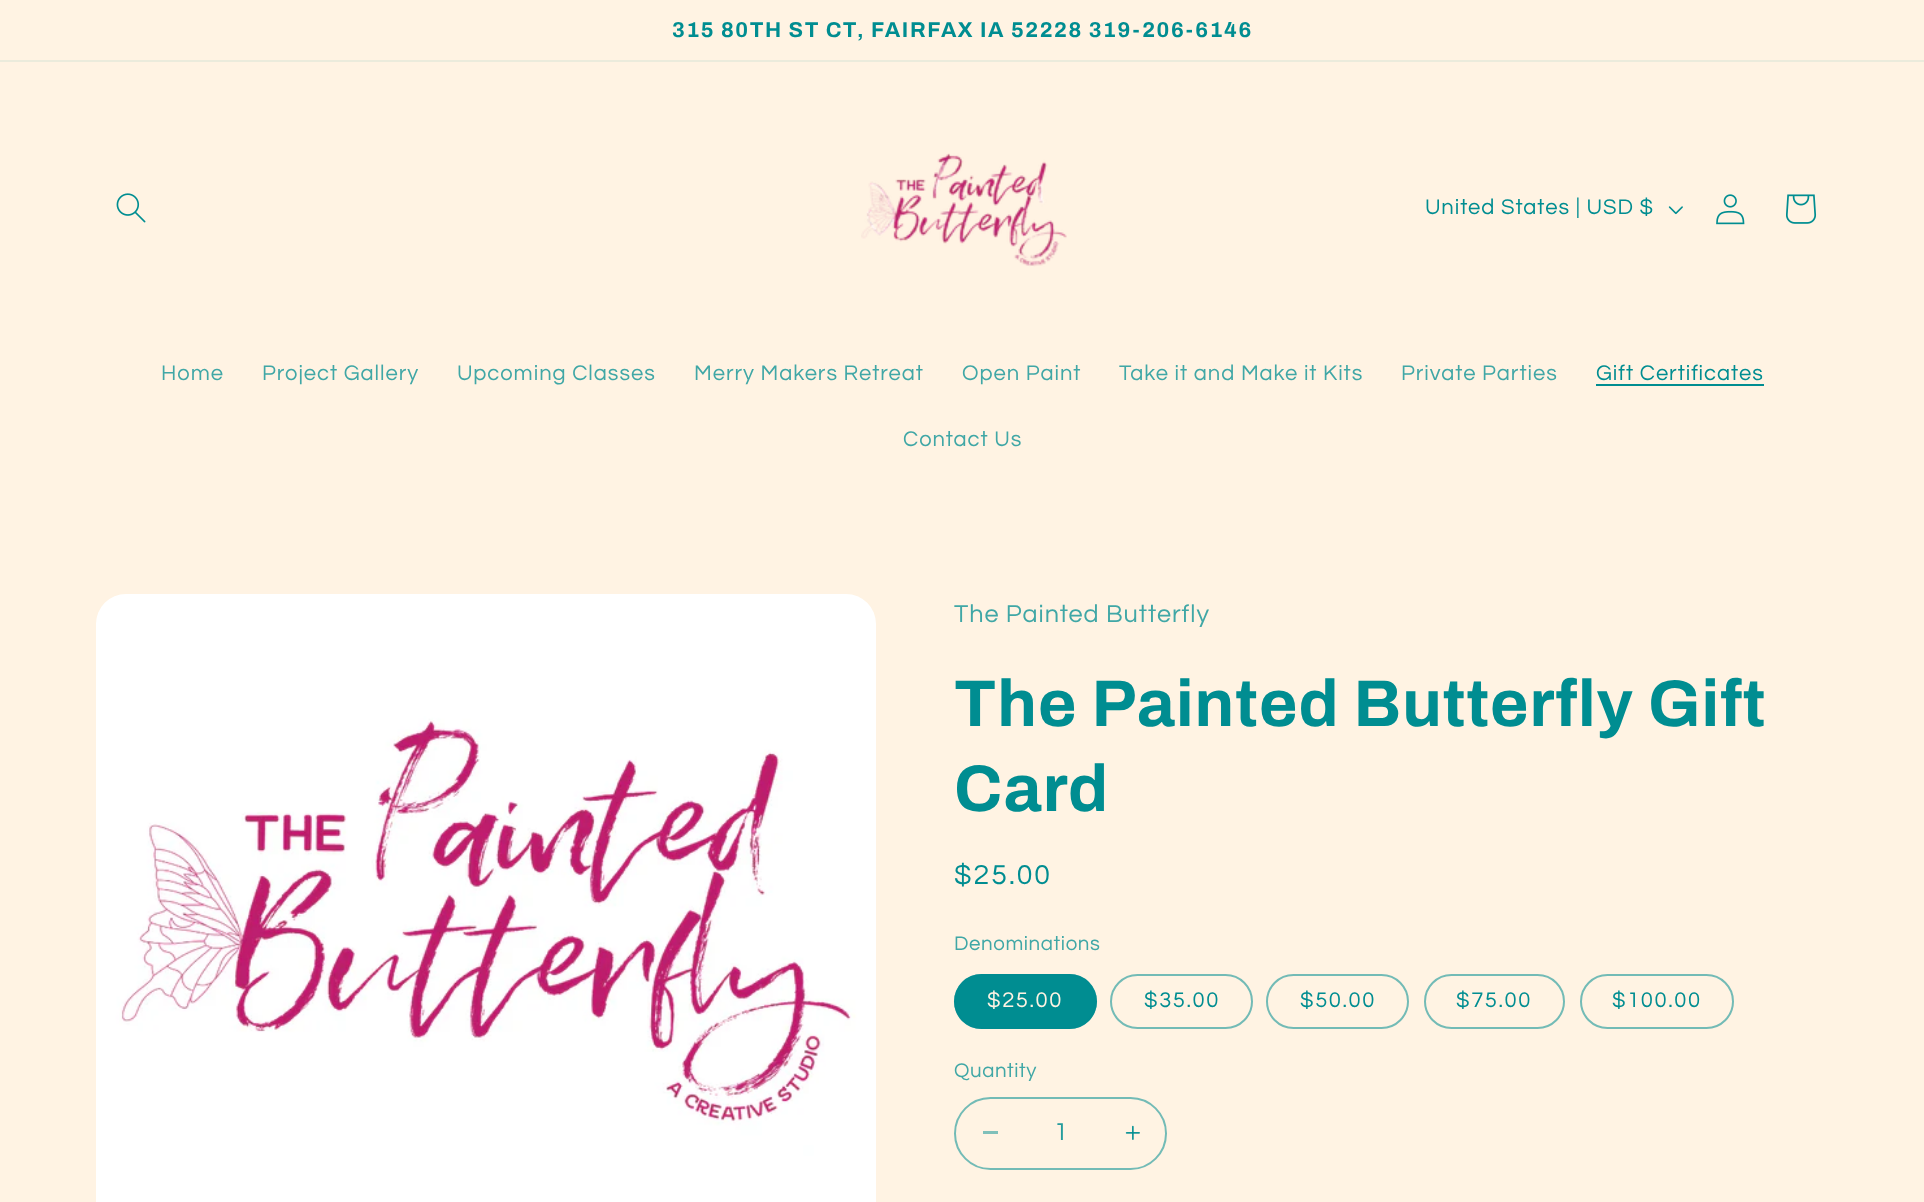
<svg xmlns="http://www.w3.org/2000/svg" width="1924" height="1202">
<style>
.a{font:bold 21.45px Archivo;letter-spacing:1.6px;fill:#008d91}
.b{font:22px Questrial;letter-spacing:0.95px;fill:#008d91}
.c{font:22px Questrial;letter-spacing:0.95px;fill:#40a7a6}
.d{font:25.25px Questrial;letter-spacing:0.95px;fill:#40a7a6}
.e{font:bold 66px Archivo;letter-spacing:1px;fill:#008d91}
.f{font:28.5px Questrial;letter-spacing:2px;fill:#008d91}
.g{font:20.5px Questrial;letter-spacing:0.6px;fill:#40a7a6}
.h{font:22px Questrial;letter-spacing:1.6px;fill:#fff3e3}
.i{font:22px Questrial;letter-spacing:1.6px;fill:#008d91}
.j{font:25.25px Questrial;fill:#269c9d}
</style>
<rect width="100%" height="100%" fill="#fff3e3"/>
<path fill="#ebebdc" d="M0 60h1924v2H0z"/>
<image href="1.png" x="116" y="193" width="30" height="30"/>
<image href="2.png" x="861" y="153" width="206" height="114"/>
<image href="3.png" x="1668" y="206" width="15" height="9"/>
<image href="4.png" x="1716" y="194" width="29" height="31"/>
<image href="5.png" x="1786" y="194" width="31" height="30"/>
<path fill="#008d91" d="M1596 384h168v2H1596z"/>
<image href="6.png" x="96" y="594" width="780" height="608"/>
<rect fill="#008d91" x="954" y="974" width="143" height="55" rx="27.5"/>
<rect fill="none" stroke="#008d918c" stroke-width="2" x="955" y="975" width="141" height="53" rx="26.5"/>
<rect fill="none" stroke="#73bbb6" stroke-width="2" x="1111" y="975" width="141" height="53" rx="26.5"/>
<rect fill="none" stroke="#73bbb6" stroke-width="2" x="1267" y="975" width="141" height="53" rx="26.5"/>
<rect fill="none" stroke="#73bbb6" stroke-width="2" x="1425" y="975" width="139" height="53" rx="26.5"/>
<rect fill="none" stroke="#73bbb6" stroke-width="2" x="1581" y="975" width="152" height="53" rx="26.5"/>
<path fill="#80c0ba" d="M983 1131h15v3H983z"/>
<image href="7.png" x="1125" y="1125" width="15" height="15"/>
<rect fill="none" stroke="#73bbb6" stroke-width="2" x="955" y="1098" width="211" height="71" rx="35.5"/>
<text class="a" x="672" y="37">315 80TH ST CT, FAIRFAX IA 52228 319-206-6146</text>
<text class="b" x="1425" y="214">United States | USD $</text>
<text class="c" x="161" y="380">Home</text>
<text class="c" x="262" y="380">Project Gallery</text>
<text class="c" x="457" y="380">Upcoming Classes</text>
<text class="c" x="694" y="380">Merry Makers Retreat</text>
<text class="c" x="962" y="380">Open Paint</text>
<text class="c" x="1119" y="380">Take it and Make it Kits</text>
<text class="c" x="1401" y="380">Private Parties</text>
<text class="b" x="1596" y="380">Gift Certificates</text>
<text class="c" x="903" y="446">Contact Us</text>
<text class="d" x="954" y="622">The Painted Butterfly</text>
<text class="e" x="954" y="726">The Painted Butterfly Gift</text>
<text class="e" x="954" y="811">Card</text>
<text class="f" x="954" y="884">$25.00</text>
<text class="g" x="954" y="950">Denominations</text>
<text class="h" x="987" y="1007">$25.00</text>
<text class="i" x="1144" y="1007">$35.00</text>
<text class="i" x="1300" y="1007">$50.00</text>
<text class="i" x="1456" y="1007">$75.00</text>
<text class="i" x="1612" y="1007">$100.00</text>
<text class="g" x="954" y="1077">Quantity</text>
<text class="j" x="1054" y="1140">1</text>
</svg>
